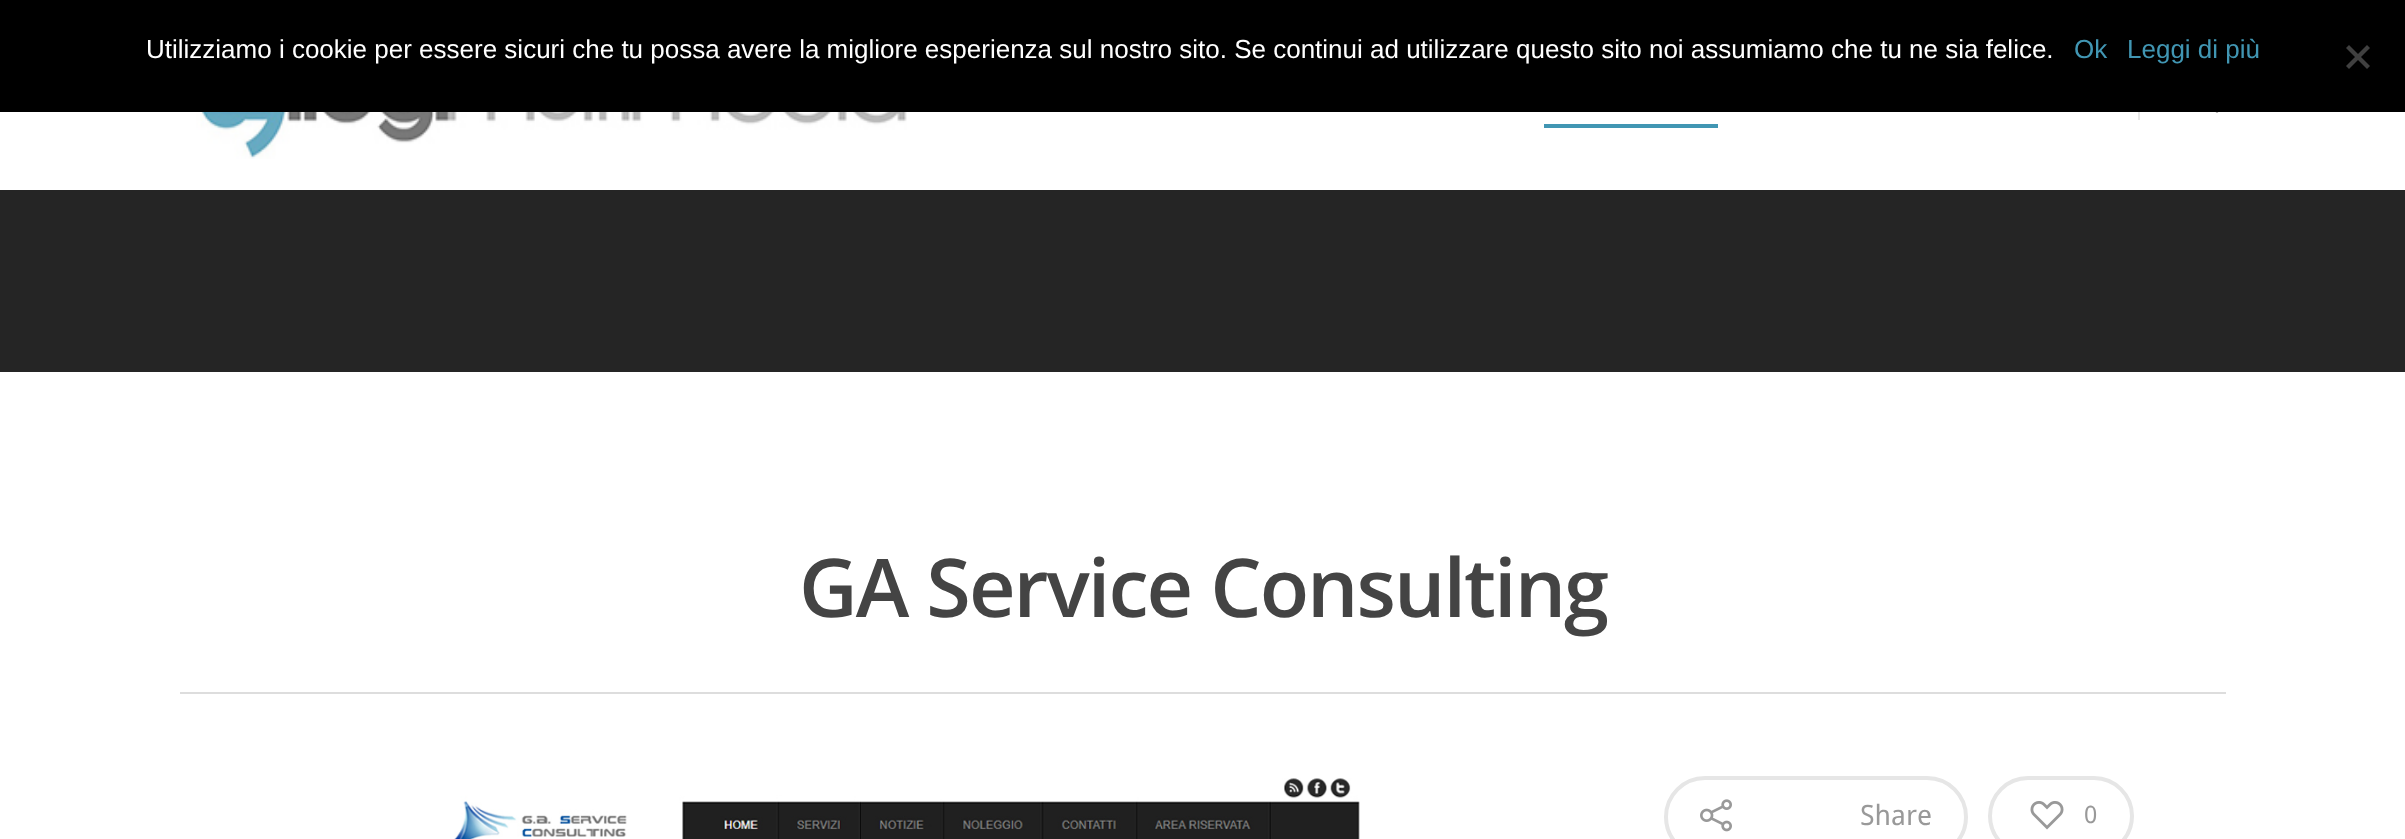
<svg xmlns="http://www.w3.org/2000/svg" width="2405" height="839">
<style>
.a{font:26px Liberation Sans;fill:#fff}
.b{font:26px Liberation Sans;fill:#4196b3}
.c{font:600 81px Open Sans;letter-spacing:-2px;fill:#444}
.d{font:28px Droid Sans;fill:#999}
.e{font:24px Droid Sans;fill:#999}
</style>
<rect width="100%" height="100%" fill="#252525"/>
<path fill="#000" d="M0 0h2405v112H0z"/>
<path fill="#404040" d="M2367 45l3 3l-21 21l-3-3z"/>
<path fill="#404040" d="M2346 48l3-3l21 21l-3 3z"/>
<path fill="#fff" d="M0 112h2405v78H0z"/>
<image href="1.png" x="196" y="112" width="711" height="47"/>
<path fill="#e7e7e7" d="M2138 112h2v8H2138z"/>
<image href="2.png" x="2215" y="112" width="4" height="1"/>
<path fill="#4196b3" d="M1544 124h174v4H1544z"/>
<path fill="#fff" d="M0 372h2405v467H0z"/>
<path fill="#ddd" d="M180 692h2046v2H180z"/>
<image href="3.png" x="454" y="778" width="906" height="61"/>
<rect fill="none" stroke="#e6e6e6" stroke-width="4" x="1666" y="778" width="300" height="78" rx="39"/>
<image href="4.png" x="1700" y="799" width="32" height="33"/>
<rect fill="none" stroke="#e6e6e6" stroke-width="4" x="1990" y="778" width="142" height="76" rx="38"/>
<image href="5.png" x="2030" y="801" width="34" height="29"/>
<text class="a" x="146" y="58">Utilizziamo i cookie per essere sicuri che tu possa avere la migliore esperienza sul nostro sito. Se continui ad utilizzare questo sito noi assumiamo che tu ne sia felice.</text>
<text class="b" x="2074" y="58">Ok</text>
<text class="b" x="2127" y="58">Leggi di più</text>
<text class="c" x="799" y="617">GA Service Consulting</text>
<text class="d" x="1860" y="825">Share</text>
<text class="e" x="2084" y="823">0</text>
</svg>
